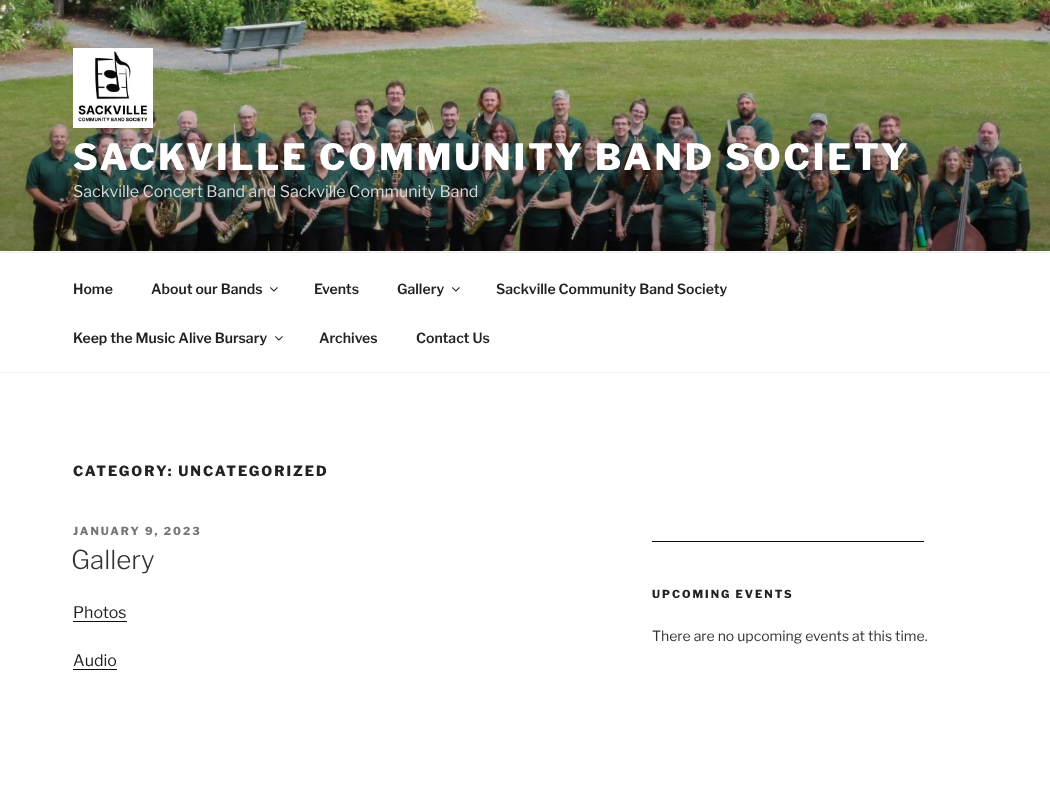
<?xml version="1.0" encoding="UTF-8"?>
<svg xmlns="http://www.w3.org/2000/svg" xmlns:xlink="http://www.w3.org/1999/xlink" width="1050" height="791">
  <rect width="100%" height="100%" fill="#ffffff" />
  <rect y="251" width="1050" height="1" fill="#fafafa" />
  <image x="0" y="0" width="1050" height="251" xlink:href="image1.png" />
  <image x="73" y="48" width="80" height="80" xlink:href="image2.png" />
  <rect y="252" width="1050" height="1" fill="#eeeeee" />
  <rect y="372" width="1050" height="1" fill="#eeeeee" />
  <image x="270" y="287" width="8" height="5" xlink:href="image3.png" />
  <image x="452" y="287" width="8" height="5" xlink:href="image3.png" />
  <image x="275" y="336" width="8" height="5" xlink:href="image3.png" />
  <rect x="73" y="621" width="54" height="1" fill="#0f0f0f" />
  <rect x="73" y="669" width="44" height="1" fill="#0f0f0f" />
  <rect x="652" y="541" width="272" height="1" fill="#0f0f0f" />
  <text x="73" y="170" style="font-family: Libre Franklin; font-size: 36px; font-weight: 800; letter-spacing: 2.9px; fill: #ffffff">SACKVILLE COMMUNITY BAND SOCIETY</text>
  <text x="73" y="197" style="font-family: Libre Franklin; font-size: 16px; fill: #d5d8d7">Sackville Concert Band and Sackville Community Band</text>
  <text x="73" y="294" style="font-family: Libre Franklin; font-size: 14px; font-weight: 600; fill: #222222">Home</text>
  <text x="151" y="294" style="font-family: Libre Franklin; font-size: 14px; font-weight: 600; fill: #222222">About our Bands</text>
  <text x="314" y="294" style="font-family: Libre Franklin; font-size: 14px; font-weight: 600; fill: #222222">Events</text>
  <text x="397" y="294" style="font-family: Libre Franklin; font-size: 14px; font-weight: 600; fill: #222222">Gallery</text>
  <text x="496" y="294" style="font-family: Libre Franklin; font-size: 14px; font-weight: 600; fill: #222222">Sackville Community Band Society</text>
  <text x="73" y="343" style="font-family: Libre Franklin; font-size: 14px; font-weight: 600; fill: #222222">Keep the Music Alive Bursary</text>
  <text x="319" y="343" style="font-family: Libre Franklin; font-size: 14px; font-weight: 600; fill: #222222">Archives</text>
  <text x="416" y="343" style="font-family: Libre Franklin; font-size: 14px; font-weight: 600; fill: #222222">Contact Us</text>
  <text x="73" y="476" style="font-family: Libre Franklin; font-size: 14px; font-weight: 800; letter-spacing: 2px; fill: #222222">CATEGORY: UNCATEGORIZED</text>
  <text x="73" y="535" style="font-family: Libre Franklin; font-size: 11px; font-weight: 800; letter-spacing: 2px; fill: #767676">JANUARY 9, 2023</text>
  <text x="71" y="569" style="font-family: Libre Franklin; font-size: 26px; font-weight: 300; fill: #333333">Gallery</text>
  <text x="73" y="618" style="font-family: Libre Franklin; font-size: 16px; fill: #222222">Photos</text>
  <text x="73" y="666" style="font-family: Libre Franklin; font-size: 16px; fill: #222222">Audio</text>
  <text x="652" y="598" style="font-family: Libre Franklin; font-size: 11px; font-weight: 800; letter-spacing: 2px; fill: #222222">UPCOMING EVENTS</text>
  <text x="652" y="641" style="font-family: Libre Franklin; font-size: 14px; fill: #333333">There are no upcoming events at this time.</text>
</svg>
